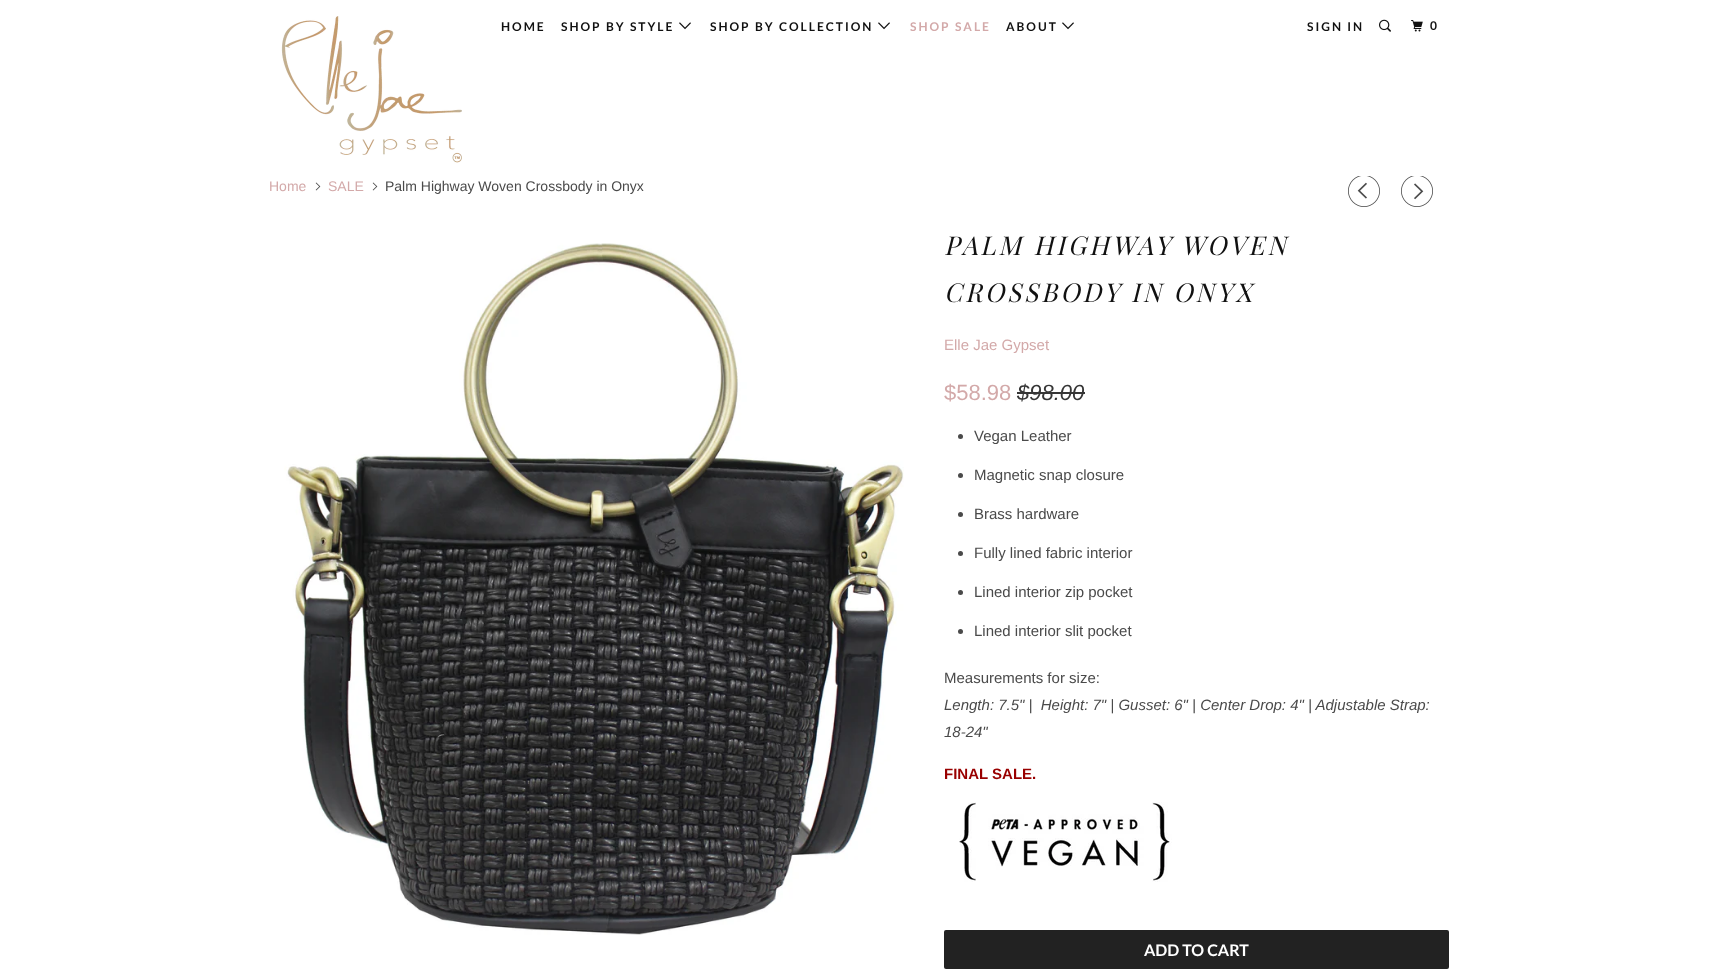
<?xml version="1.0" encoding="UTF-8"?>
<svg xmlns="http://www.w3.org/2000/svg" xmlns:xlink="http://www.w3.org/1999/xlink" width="1718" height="980">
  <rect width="100%" height="100%" fill="#ffffff" />
  <image x="281" y="16" width="181" height="147" xlink:href="image1.png" />
  <image x="679" y="22" width="12" height="8" xlink:href="image2.png" />
  <image x="878" y="22" width="12" height="8" xlink:href="image2.png" />
  <image x="1062" y="22" width="12" height="8" xlink:href="image2.png" />
  <image x="1379" y="19" width="12" height="13" xlink:href="image3.png" />
  <image x="1411" y="20" width="12" height="12" xlink:href="image4.png" />
  <image x="315" y="182" width="6" height="9" xlink:href="image5.png" />
  <image x="372" y="182" width="6" height="9" xlink:href="image5.png" />
  <image x="1348" y="176" width="32" height="31" xlink:href="image6.png" />
  <image x="1401" y="176" width="32" height="31" xlink:href="image7.png" />
  <image x="284" y="243" width="620" height="692" xlink:href="image8.png" />
  <rect x="1017" y="392" width="68" height="2" fill="#363636" />
  <circle cx="960.5" cy="436.5" r="2.5" fill="#4a4a4a" />
  <circle cx="960.5" cy="475.5" r="2.5" fill="#4a4a4a" />
  <circle cx="960.5" cy="514.5" r="2.5" fill="#4a4a4a" />
  <circle cx="960.5" cy="553.5" r="2.5" fill="#4a4a4a" />
  <circle cx="960.5" cy="592.5" r="2.5" fill="#4a4a4a" />
  <circle cx="960.5" cy="631.5" r="2.5" fill="#4a4a4a" />
  <image x="959" y="802" width="213" height="80" xlink:href="image9.png" />
  <rect x="944" y="930" width="505" height="39" rx="2" fill="#222222" />
  <text x="501" y="31" style="font-family: Lato; font-size: 12px; font-weight: bold; letter-spacing: 2px; fill: #111111">HOME</text>
  <text x="561" y="31" style="font-family: Lato; font-size: 12px; font-weight: bold; letter-spacing: 2px; fill: #111111">SHOP BY STYLE</text>
  <text x="710" y="31" style="font-family: Lato; font-size: 12px; font-weight: bold; letter-spacing: 2px; fill: #111111">SHOP BY COLLECTION</text>
  <text x="910" y="31" style="font-family: Lato; font-size: 12px; font-weight: bold; letter-spacing: 2px; fill: #d3a9a9">SHOP SALE</text>
  <text x="1006" y="31" style="font-family: Lato; font-size: 12px; font-weight: bold; letter-spacing: 2px; fill: #111111">ABOUT</text>
  <text x="1307" y="31" style="font-family: Lato; font-size: 12px; font-weight: bold; letter-spacing: 2px; fill: #111111">SIGN IN</text>
  <text x="1430" y="30" style="font-family: Lato; font-size: 12px; font-weight: bold; letter-spacing: 2px; fill: #111111">0</text>
  <text x="269" y="191" style="font-family: Liberation Sans; font-size: 14px; fill: #d3a9a9">Home</text>
  <text x="328" y="191" style="font-family: Liberation Sans; font-size: 14px; fill: #d3a9a9">SALE</text>
  <text x="385" y="191" style="font-family: Liberation Sans; font-size: 14px; fill: #4a4a4a">Palm Highway Woven Crossbody in Onyx</text>
  <text x="944" y="255" style="font-family: Playfair Display; font-size: 26px; font-style: italic; letter-spacing: 3px; fill: #111111">PALM HIGHWAY WOVEN</text>
  <text x="944" y="302" style="font-family: Playfair Display; font-size: 26px; font-style: italic; letter-spacing: 3px; fill: #111111">CROSSBODY IN ONYX</text>
  <text x="944" y="350" style="font-family: Liberation Sans; font-size: 15px; fill: #d3a9a9">Elle Jae Gypset</text>
  <text x="944" y="400" style="font-family: Liberation Sans; font-size: 22px; fill: #d3a9a9">$58.98</text>
  <text x="1017" y="400" style="font-family: Liberation Sans; font-size: 22px; font-style: italic; fill: #363636">$98.00</text>
  <text x="974" y="441" style="font-family: Liberation Sans; font-size: 15px; fill: #4a4a4a">Vegan Leather</text>
  <text x="974" y="480" style="font-family: Liberation Sans; font-size: 15px; fill: #4a4a4a">Magnetic snap closure</text>
  <text x="974" y="519" style="font-family: Liberation Sans; font-size: 15px; fill: #4a4a4a">Brass hardware</text>
  <text x="974" y="558" style="font-family: Liberation Sans; font-size: 15px; fill: #4a4a4a">Fully lined fabric interior</text>
  <text x="974" y="597" style="font-family: Liberation Sans; font-size: 15px; fill: #4a4a4a">Lined interior zip pocket</text>
  <text x="974" y="636" style="font-family: Liberation Sans; font-size: 15px; fill: #4a4a4a">Lined interior slit pocket</text>
  <text x="944" y="683" style="font-family: Liberation Sans; font-size: 15px; fill: #4a4a4a">Measurements for size:</text>
  <text x="944" y="710" style="font-family: Liberation Sans; font-size: 15px; font-style: italic; fill: #4a4a4a" xml:space="preserve">Length: 7.5" |  Height: 7" | Gusset: 6" | Center Drop: 4" | Adjustable Strap:</text>
  <text x="944" y="737" style="font-family: Liberation Sans; font-size: 15px; font-style: italic; fill: #4a4a4a">18-24"</text>
  <text x="944" y="779" style="font-family: Liberation Sans; font-size: 15px; font-weight: bold; fill: #990000">FINAL SALE.</text>
  <text x="1144" y="956" style="font-family: Lato; font-size: 16px; font-weight: bold; fill: #ffffff">ADD TO CART</text>
</svg>
